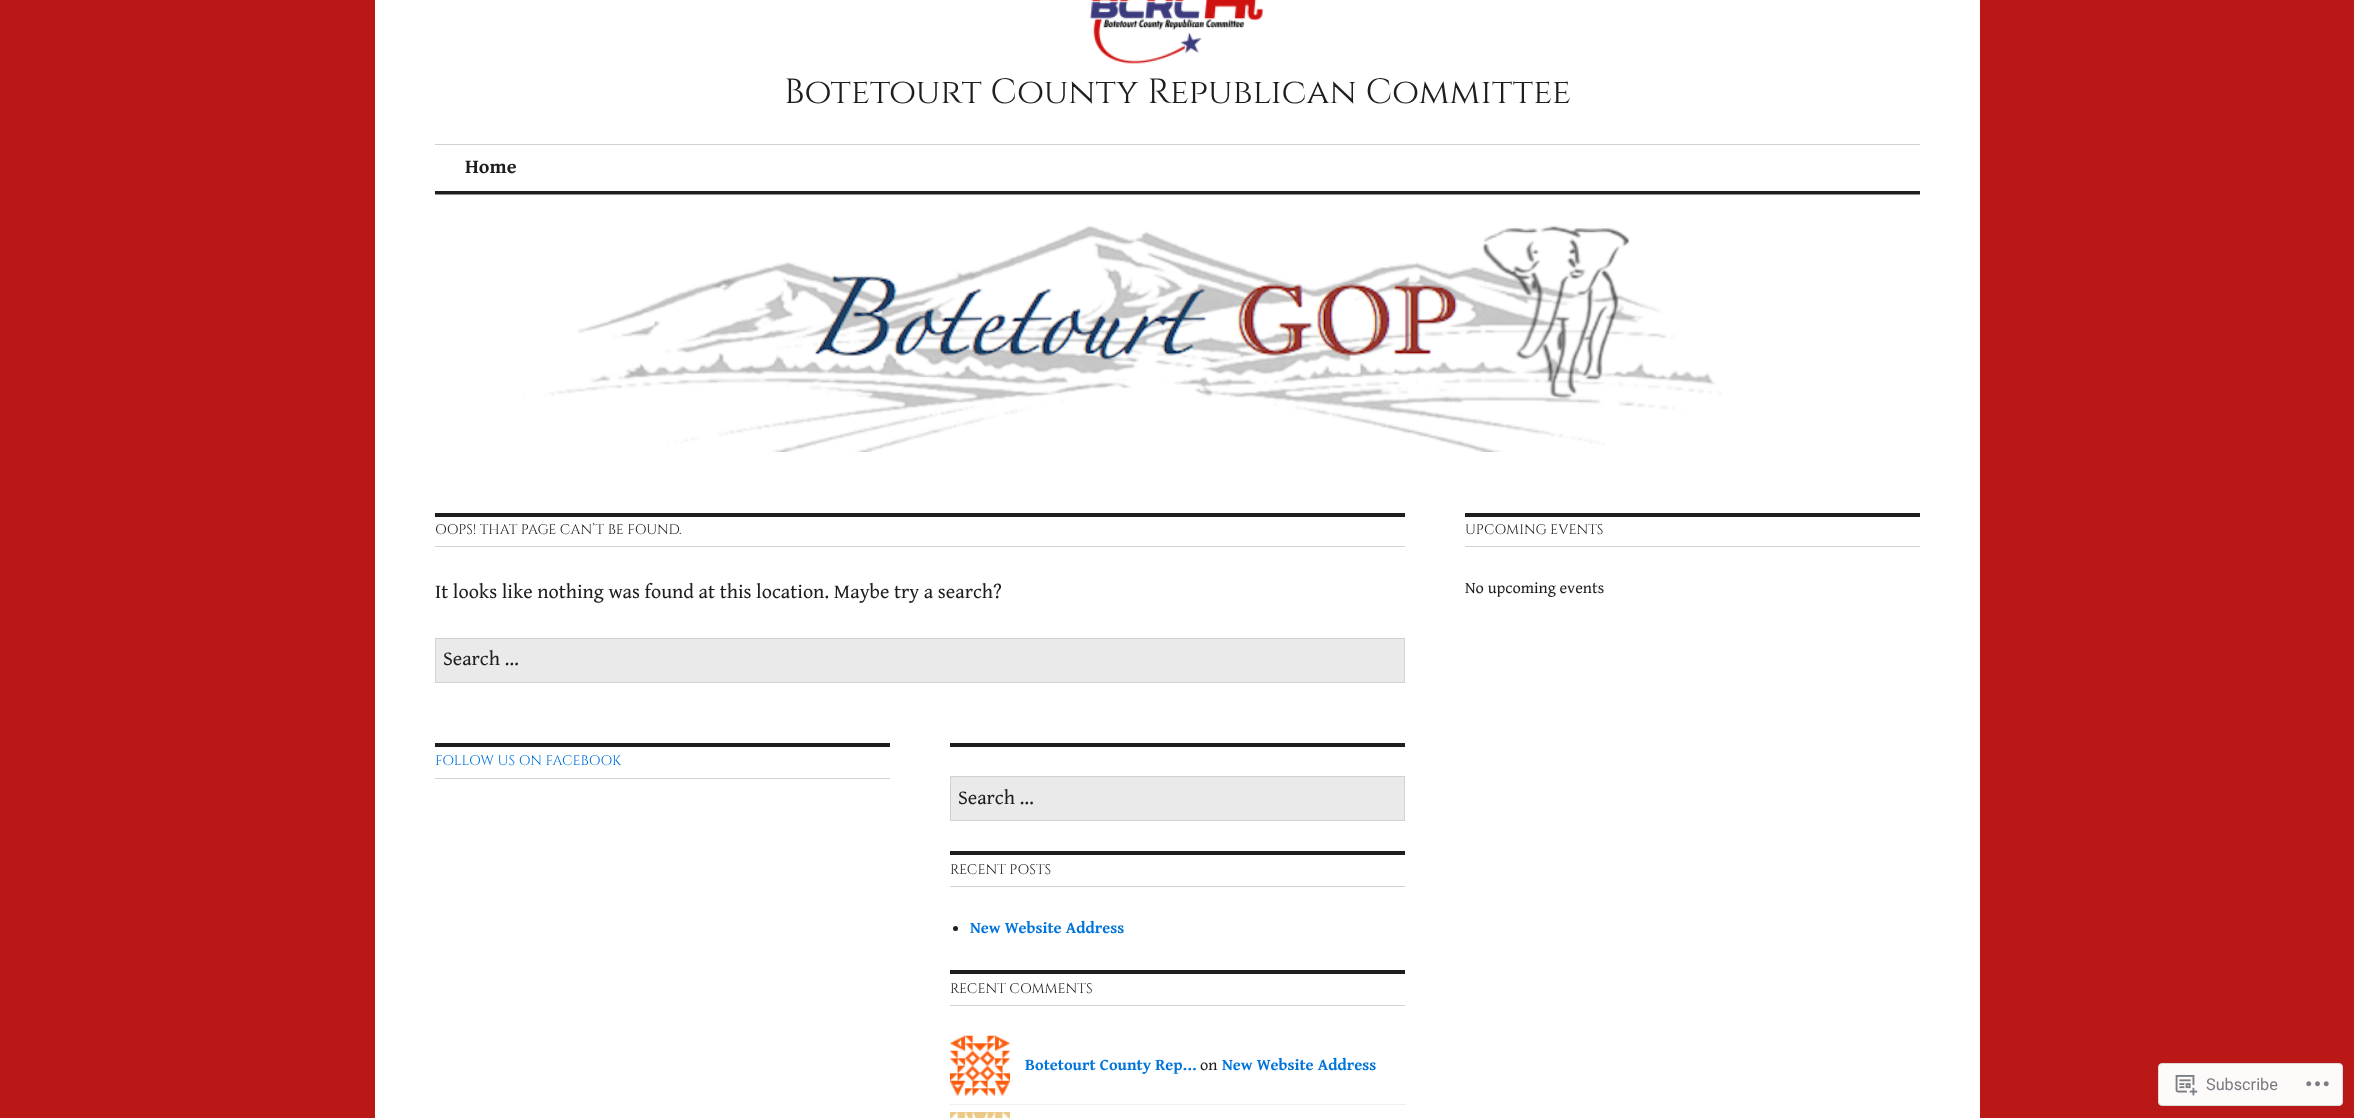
<?xml version="1.0" encoding="UTF-8"?>
<svg xmlns="http://www.w3.org/2000/svg" xmlns:xlink="http://www.w3.org/1999/xlink" width="2354" height="1118">
  <rect width="100%" height="100%" fill="#ba1717" />
  <rect x="375" width="1605" height="1118" fill="#ffffff" />
  <image x="1089" y="0" width="175" height="64" xlink:href="image1.png" />
  <rect x="435" y="144" width="1485" height="1" fill="#d1d1d1" />
  <rect x="435" y="191" width="1485" height="4" fill="#1e1e1e" />
  <image x="435" y="194" width="1485" height="258" xlink:href="image2.png" />
  <rect x="435" y="513" width="970" height="4" fill="#1e1e1e" />
  <rect x="435" y="546" width="970" height="1" fill="#d1d1d1" />
  <rect x="435.5" y="638.5" width="969" height="44" fill="#eaeaea" stroke="#d1d1d1" />
  <rect x="1465" y="513" width="455" height="4" fill="#1e1e1e" />
  <rect x="1465" y="546" width="455" height="1" fill="#d1d1d1" />
  <rect x="435" y="743" width="455" height="4" fill="#1e1e1e" />
  <rect x="435" y="778" width="455" height="1" fill="#d1d1d1" />
  <rect x="950" y="743" width="455" height="4" fill="#1e1e1e" />
  <rect x="950.5" y="776.5" width="454" height="44" fill="#eaeaea" stroke="#d1d1d1" />
  <rect x="950" y="851" width="455" height="4" fill="#1e1e1e" />
  <rect x="950" y="886" width="455" height="1" fill="#d1d1d1" />
  <circle cx="955.5" cy="928.5" r="2.5" fill="#1e1e1e" />
  <rect x="950" y="970" width="455" height="4" fill="#1e1e1e" />
  <rect x="950" y="1005" width="455" height="1" fill="#d1d1d1" />
  <rect x="950" y="1104" width="456" height="1" fill="#efefef" />
  <image x="950" y="1035" width="60" height="61" xlink:href="image3.png" />
  <image x="950" y="1112" width="60" height="6" xlink:href="image4.png" />
  <rect x="2158.5" y="1063.5" width="184" height="42" rx="3.5" fill="#fefafa" stroke="#dbd8da" />
  <image x="2175" y="1075" width="23" height="21" xlink:href="image5.png" />
  <image x="2306" y="1081" width="23" height="6" xlink:href="image6.png" />
  <text x="784" y="103" style="font-family: Cinzel; font-size: 35px; fill: #1e1e1e">Botetourt County Republican Committee</text>
  <text x="465" y="173" style="font-family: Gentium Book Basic; font-size: 20px; font-weight: bold; fill: #1e1e1e">Home</text>
  <text x="435" y="534" style="font-family: Cinzel; font-size: 14px; fill: #1e1e1e">OOPS! THAT PAGE CAN’T BE FOUND.</text>
  <text x="435" y="598" style="font-family: Gentium Book Basic; font-size: 20px; fill: #1e1e1e">It looks like nothing was found at this location. Maybe try a search?</text>
  <text x="443" y="665" style="font-family: Gentium Book Basic; font-size: 20px; fill: #1e1e1e">Search …</text>
  <text x="1465" y="534" style="font-family: Cinzel; font-size: 14px; fill: #1e1e1e">UPCOMING EVENTS</text>
  <text x="1465" y="593" style="font-family: Gentium Book Basic; font-size: 16.25px; fill: #1e1e1e">No upcoming events</text>
  <text x="435" y="765" style="font-family: Cinzel; font-size: 14px; fill: #0074d9">FOLLOW US ON FACEBOOK</text>
  <text x="958" y="804" style="font-family: Gentium Book Basic; font-size: 20px; fill: #1e1e1e">Search …</text>
  <text x="950" y="874" style="font-family: Cinzel; font-size: 14px; fill: #1e1e1e">RECENT POSTS</text>
  <text x="970" y="933" style="font-family: Gentium Book Basic; font-size: 16.25px; font-weight: bold; fill: #0074d9">New Website Address</text>
  <text x="950" y="993" style="font-family: Cinzel; font-size: 14px; fill: #1e1e1e">RECENT COMMENTS</text>
  <text x="1025" y="1070" style="font-family: Gentium Book Basic; font-size: 16.25px; font-weight: bold; fill: #0074d9">Botetourt County Rep…</text>
  <text x="1200" y="1070" style="font-family: Gentium Book Basic; font-size: 16.25px; fill: #1e1e1e">on</text>
  <text x="1222" y="1070" style="font-family: Gentium Book Basic; font-size: 16.25px; font-weight: bold; fill: #0074d9">New Website Address</text>
  <text x="2206" y="1090" style="font-family: Roboto; font-size: 16.25px; fill: #797a80">Subscribe</text>
</svg>
